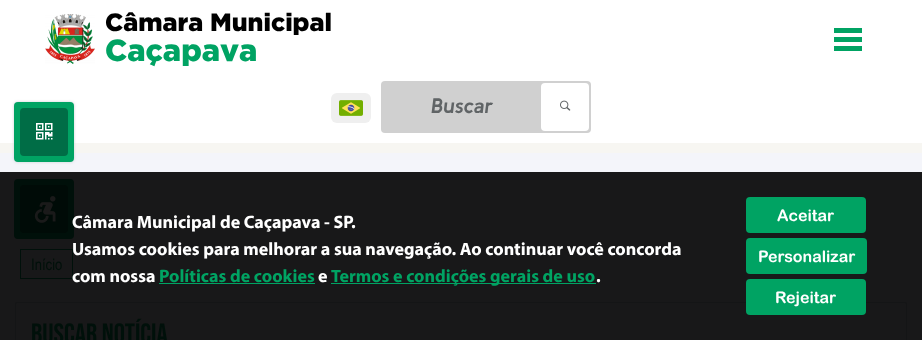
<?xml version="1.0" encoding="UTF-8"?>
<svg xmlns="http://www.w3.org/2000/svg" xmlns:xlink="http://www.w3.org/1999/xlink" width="922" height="340">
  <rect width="100%" height="100%" fill="#f7f6f2" />
  <rect width="922" height="143" fill="#ffffff" />
  <image x="45" y="14" width="50" height="50" xlink:href="image1.png" />
  <rect x="834" y="28" width="28" height="5" fill="#00a363" />
  <rect x="834" y="37" width="28" height="5" fill="#00a363" />
  <rect x="834" y="46" width="28" height="5" fill="#00a363" />
  <rect x="331" y="93" width="40" height="30" rx="6" fill="#efefef" />
  <image x="339" y="100" width="24" height="16" xlink:href="image2.png" />
  <rect x="381" y="81" width="210" height="52" rx="4" fill="#d0d0d0" />
  <rect x="541" y="83" width="48" height="48" rx="4" fill="#ffffff" />
  <image x="560" y="100" width="11" height="11" xlink:href="image3.png" />
  <rect y="172" width="922" height="168" fill="#181819" />
  <rect x="159" y="283" width="156" height="1" fill="#00a363" />
  <rect x="331" y="283" width="265" height="1" fill="#00a363" />
  <rect x="746" y="197" width="120" height="36" rx="4" fill="#00a363" />
  <rect x="746" y="238" width="121" height="36" rx="4" fill="#00a363" />
  <rect x="15.5" y="302.5" width="891" height="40" rx="1.5" fill="none" stroke="#141516" />
  <rect x="746" y="279" width="120" height="36" rx="4" fill="#00a363" />
  <rect y="153" width="922" height="19" fill="#f4f5fa" />
  <rect x="20.5" y="249.5" width="52" height="29" fill="none" stroke="#00100a" />
  <rect x="14" y="102" width="60" height="60" rx="4" fill="#cbd0d6" filter="blur(1.5px)" />
  <rect x="14" y="102" width="60" height="60" rx="4" fill="#00a363" />
  <rect x="20" y="108" width="48" height="48" rx="4" fill="#006d46" />
  <image x="36" y="123" width="17" height="17" xlink:href="image4.png" />
  <rect x="14" y="179" width="60" height="60" rx="4" fill="#00100a" />
  <rect x="20" y="185" width="48" height="48" rx="4" fill="#000b07" />
  <image x="34" y="196" width="22" height="27" xlink:href="image5.png" />
  <text x="105" y="31" style="font-family: Gotham; font-size: 25px; font-weight: 900; fill: #000000">Câmara Municipal</text>
  <text x="105" y="61" style="font-family: Gotham; font-size: 30.5px; font-weight: 900; fill: #00a363">Caçapava</text>
  <text x="431" y="113" style="font-family: Kulim Park; font-size: 21px; font-weight: bold; font-style: italic; fill: #606466">Buscar</text>
  <text x="72" y="228" style="font-family: Myriad; font-size: 18px; font-weight: bold; fill: #ffffff">Câmara Municipal de Caçapava - SP.</text>
  <text x="72" y="255" style="font-family: Myriad; font-size: 18px; font-weight: bold; fill: #ffffff">Usamos cookies para melhorar a sua navegação. Ao continuar você concorda</text>
  <text x="72" y="282" style="font-family: Myriad; font-size: 18px; font-weight: bold; fill: #ffffff">com nossa</text>
  <text x="159" y="282" style="font-family: Myriad; font-size: 18px; font-weight: bold; fill: #00a363">Políticas de cookies</text>
  <text x="318" y="282" style="font-family: Myriad; font-size: 18px; font-weight: bold; fill: #ffffff">e</text>
  <text x="331" y="282" style="font-family: Myriad; font-size: 18px; font-weight: bold; fill: #00a363">Termos e condições gerais de uso</text>
  <text x="596" y="282" style="font-family: Myriad; font-size: 18px; font-weight: bold; fill: #ffffff">.</text>
  <text x="777" y="221" style="font-family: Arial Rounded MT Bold; font-size: 16px; font-weight: bold; fill: #ffffff">Aceitar</text>
  <text x="758" y="262" style="font-family: Arial Rounded MT Bold; font-size: 16px; font-weight: bold; fill: #ffffff">Personalizar</text>
  <text x="775" y="303" style="font-family: Arial Rounded MT Bold; font-size: 16px; font-weight: bold; fill: #ffffff">Rejeitar</text>
  <text x="31" y="270" style="font-family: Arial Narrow; font-size: 16px; fill: #00100a">Início</text>
  <text x="31" y="343" style="font-family: Bebas Neue; font-size: 28px; fill: #00100a">Buscar Notícia</text>
</svg>
